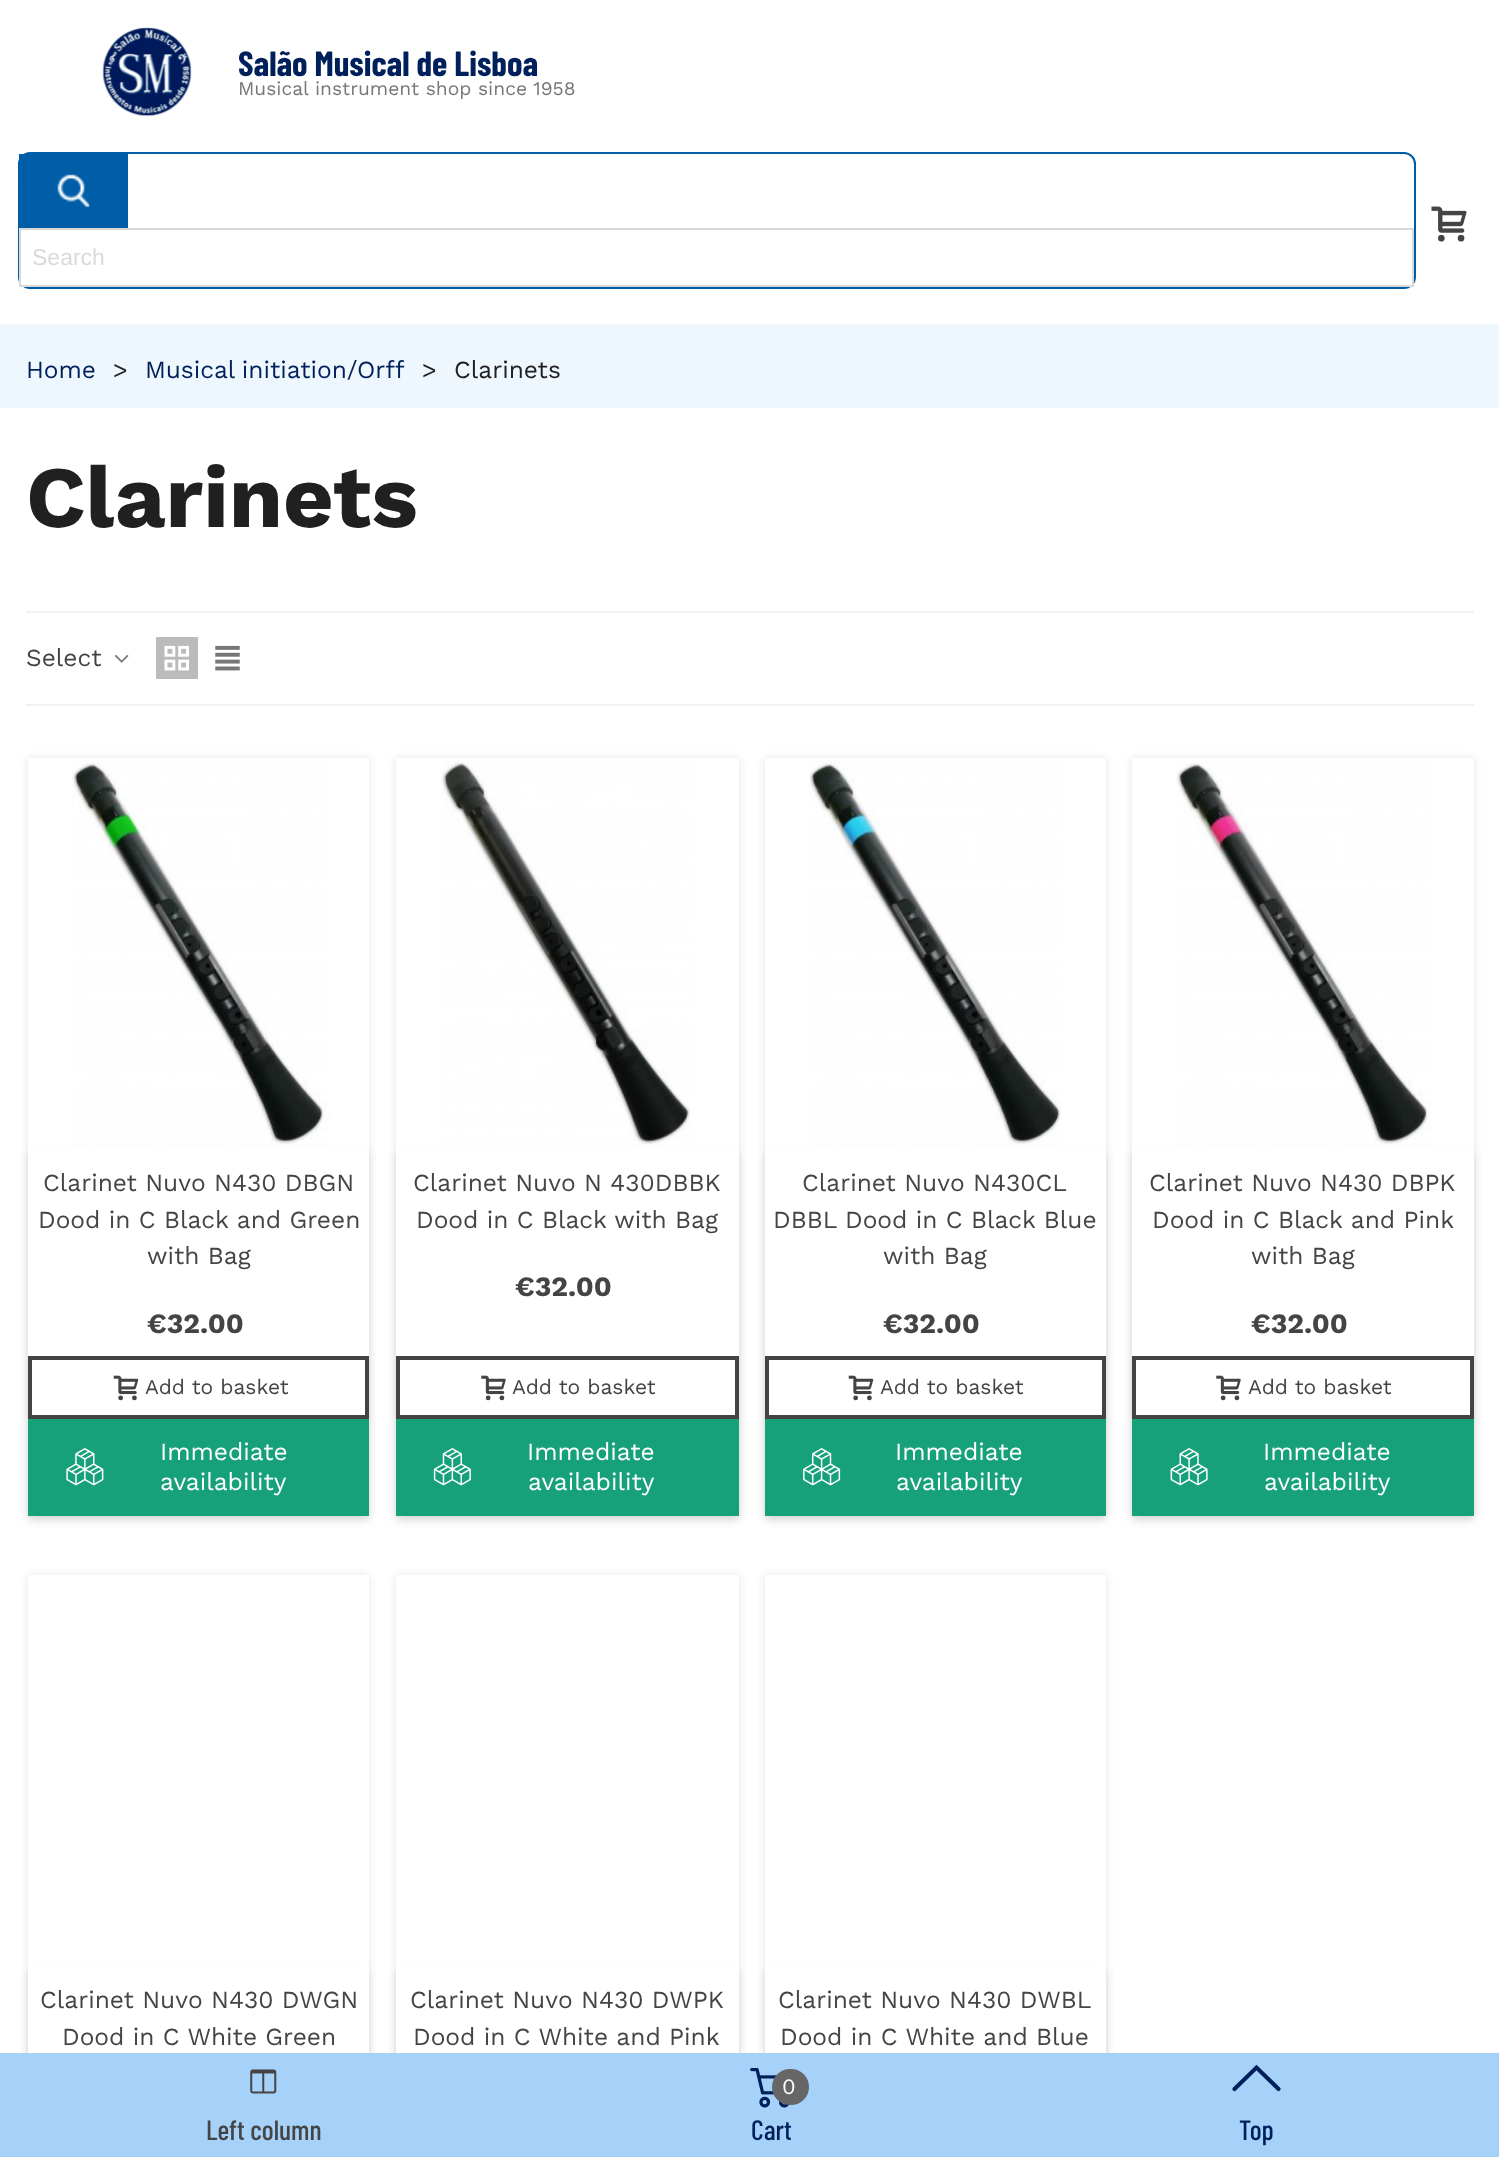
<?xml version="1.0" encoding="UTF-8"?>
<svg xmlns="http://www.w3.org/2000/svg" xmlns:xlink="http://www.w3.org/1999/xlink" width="1499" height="2157">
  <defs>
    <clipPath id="clip1"><path d="M 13 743 h 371 v 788 h -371 z m 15 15 h 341 v 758 h -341 z" clip-rule="evenodd" /></clipPath>
    <clipPath id="clip2"><path d="M 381 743 h 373 v 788 h -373 z m 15 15 h 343 v 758 h -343 z" clip-rule="evenodd" /></clipPath>
    <clipPath id="clip3"><path d="M 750 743 h 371 v 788 h -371 z m 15 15 h 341 v 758 h -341 z" clip-rule="evenodd" /></clipPath>
    <clipPath id="clip4"><path d="M 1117 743 h 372 v 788 h -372 z m 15 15 h 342 v 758 h -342 z" clip-rule="evenodd" /></clipPath>
    <clipPath id="clip5"><path d="M 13 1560 h 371 v 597 h -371 z m 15 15 h 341 v 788 h -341 z" clip-rule="evenodd" /></clipPath>
    <clipPath id="clip6"><path d="M 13 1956 h 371 v 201 h -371 z m 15 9 h 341 v 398 h -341 z" clip-rule="evenodd" /></clipPath>
    <clipPath id="clip7"><path d="M 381 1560 h 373 v 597 h -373 z m 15 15 h 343 v 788 h -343 z" clip-rule="evenodd" /></clipPath>
    <clipPath id="clip8"><path d="M 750 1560 h 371 v 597 h -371 z m 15 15 h 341 v 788 h -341 z" clip-rule="evenodd" /></clipPath>
    <clipPath id="clip9"><path d="M 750 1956 h 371 v 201 h -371 z m 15 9 h 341 v 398 h -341 z" clip-rule="evenodd" /></clipPath>
  </defs>
  <rect width="100%" height="100%" fill="#ffffff" />
  <image x="102" y="27" width="90" height="90" xlink:href="image1.png" />
  <image x="1431" y="206" width="36" height="36" xlink:href="image2.png" />
  <rect x="19" y="153" width="1396" height="135" rx="11" fill="none" stroke="#005da8" stroke-width="2" />
  <rect x="19" y="154" width="109" height="74" fill="#005da8" />
  <image x="57" y="174" width="33" height="34" xlink:href="image3.png" />
  <rect x="21" y="281" width="1391" height="4" fill="#ffffff" />
  <rect x="20" y="229" width="1393" height="57" fill="none" stroke="#d9d9d9" stroke-width="2" />
  <rect y="324" width="1499" height="84" fill="#eef6fe" />
  <rect x="26" y="611" width="1448" height="2" fill="#f2f2f2" />
  <rect x="26" y="704" width="1448" height="2" fill="#f2f2f2" />
  <image x="114" y="654" width="15" height="9" xlink:href="image4.png" />
  <rect x="156" y="637" width="42" height="42" fill="#bbbbbb" />
  <image x="164" y="645" width="25" height="26" xlink:href="image5.png" />
  <image x="215" y="645" width="25" height="26" xlink:href="image6.png" />
  <g clip-path="url(#clip1)">
    <rect x="28" y="758" width="341" height="758" fill="#000000" fill-opacity="0.1" filter="blur(4.5px)" />
  </g>
  <rect x="28" y="1153" width="341" height="368" fill="#000000" fill-opacity="0.1" filter="blur(4.5px)" />
  <image x="72" y="760" width="257" height="385" xlink:href="image7.png" />
  <rect x="28" y="1148" width="341" height="267" fill="#ffffff" />
  <rect x="30" y="1358" width="337" height="59" fill="none" stroke="#444444" stroke-width="4" />
  <image x="113" y="1375" width="26" height="26" xlink:href="image8.png" />
  <rect x="28" y="1419" width="341" height="97" fill="#17a17a" />
  <image x="66" y="1448" width="38" height="38" xlink:href="image9.png" />
  <g clip-path="url(#clip2)">
    <rect x="396" y="758" width="343" height="758" fill="#000000" fill-opacity="0.1" filter="blur(4.5px)" />
  </g>
  <rect x="396" y="1153" width="343" height="368" fill="#000000" fill-opacity="0.1" filter="blur(4.5px)" />
  <image x="441" y="761" width="250" height="384" xlink:href="image10.png" />
  <rect x="396" y="1148" width="343" height="267" fill="#ffffff" />
  <rect x="398" y="1358" width="339" height="59" fill="none" stroke="#444444" stroke-width="4" />
  <image x="481" y="1375" width="25" height="26" xlink:href="image11.png" />
  <rect x="396" y="1419" width="343" height="97" fill="#17a17a" />
  <image x="433" y="1448" width="38" height="38" xlink:href="image12.png" />
  <g clip-path="url(#clip3)">
    <rect x="765" y="758" width="341" height="758" fill="#000000" fill-opacity="0.1" filter="blur(4.5px)" />
  </g>
  <rect x="765" y="1153" width="341" height="368" fill="#000000" fill-opacity="0.1" filter="blur(4.5px)" />
  <image x="809" y="760" width="253" height="385" xlink:href="image13.png" />
  <rect x="765" y="1148" width="341" height="267" fill="#ffffff" />
  <rect x="767" y="1358" width="337" height="59" fill="none" stroke="#444444" stroke-width="4" />
  <image x="848" y="1375" width="26" height="26" xlink:href="image8.png" />
  <rect x="765" y="1419" width="341" height="97" fill="#17a17a" />
  <image x="803" y="1448" width="38" height="38" xlink:href="image14.png" />
  <g clip-path="url(#clip4)">
    <rect x="1132" y="758" width="342" height="758" fill="#000000" fill-opacity="0.1" filter="blur(4.5px)" />
  </g>
  <rect x="1132" y="1153" width="342" height="368" fill="#000000" fill-opacity="0.1" filter="blur(4.5px)" />
  <image x="1176" y="762" width="256" height="383" xlink:href="image15.png" />
  <rect x="1132" y="1148" width="342" height="267" fill="#ffffff" />
  <rect x="1134" y="1358" width="338" height="59" fill="none" stroke="#444444" stroke-width="4" />
  <image x="1216" y="1375" width="25" height="26" xlink:href="image11.png" />
  <rect x="1132" y="1419" width="342" height="97" fill="#17a17a" />
  <image x="1170" y="1448" width="38" height="38" xlink:href="image16.png" />
  <g clip-path="url(#clip5)">
    <rect x="28" y="1575" width="341" height="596" fill="#000000" fill-opacity="0.1" filter="blur(4.5px)" />
  </g>
  <g clip-path="url(#clip6)">
    <rect x="28" y="1971" width="341" height="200" fill="#000000" fill-opacity="0.1" filter="blur(4.5px)" />
  </g>
  <g clip-path="url(#clip7)">
    <rect x="396" y="1575" width="343" height="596" fill="#000000" fill-opacity="0.1" filter="blur(4.5px)" />
  </g>
  <rect x="396" y="1971" width="343" height="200" fill="#000000" fill-opacity="0.1" filter="blur(4.5px)" />
  <rect x="396" y="1965" width="343" height="88" fill="#ffffff" />
  <g clip-path="url(#clip8)">
    <rect x="765" y="1575" width="341" height="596" fill="#000000" fill-opacity="0.1" filter="blur(4.5px)" />
  </g>
  <g clip-path="url(#clip9)">
    <rect x="765" y="1971" width="341" height="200" fill="#000000" fill-opacity="0.1" filter="blur(4.5px)" />
  </g>
  <rect y="2053" width="1499" height="104" fill="#a6d2f9" />
  <image x="250" y="2069" width="27" height="25" xlink:href="image17.png" />
  <image x="750" y="2068" width="40" height="40" xlink:href="image18.png" />
  <rect x="772" y="2069" width="37" height="36" rx="18" fill="#666666" />
  <path d="M 1234.5 2089 l 22 -21.5 l 22 21.5" fill="none" stroke="#00205b" stroke-width="4.1" stroke-linecap="round" />
  <text x="238" y="76" style="font-family: Barlow Condensed; font-size: 35px; font-weight: bold; fill: #00205b">Salão Musical de Lisboa</text>
  <text x="238" y="95" style="font-family: Work Sans; font-size: 19.25px; fill: #777777">Musical instrument shop since 1958</text>
  <text x="32" y="265" style="font-family: Liberation Sans; font-size: 23px; fill: #dadada">Search</text>
  <text x="26" y="378" style="font-family: Work Sans; font-size: 24.5px; fill: #00205b">Home</text>
  <text x="113" y="378" style="font-family: Work Sans; font-size: 24.5px; fill: #202020">&gt;</text>
  <text x="145" y="378" word-spacing="-1" style="font-family: Work Sans; font-size: 24.5px; fill: #00205b">Musical initiation/Orff</text>
  <text x="422" y="378" style="font-family: Work Sans; font-size: 24.5px; fill: #202020">&gt;</text>
  <text x="454" y="378" style="font-family: Work Sans; font-size: 24.5px; fill: #202020">Clarinets</text>
  <text x="26" y="527" style="font-family: Work Sans; font-size: 87.5px; font-weight: bold; fill: #202020">Clarinets</text>
  <text x="26" y="666" style="font-family: Work Sans; font-size: 24.5px; fill: #444444">Select</text>
  <text x="43" y="1191" style="font-family: Work Sans; font-size: 24.5px; fill: #444444">Clarinet Nuvo N430 DBGN</text>
  <text x="38" y="1228" style="font-family: Work Sans; font-size: 24.5px; fill: #444444">Dood in C Black and Green</text>
  <text x="147" y="1264" style="font-family: Work Sans; font-size: 24.5px; fill: #444444">with Bag</text>
  <text x="147" y="1333" style="font-family: Work Sans; font-size: 28px; font-weight: bold; fill: #444444">€32.00</text>
  <text x="145" y="1394" style="font-family: Work Sans; font-size: 21px; fill: #444444">Add to basket</text>
  <text x="160" y="1460" style="font-family: Work Sans; font-size: 24.5px; fill: #ffffff">Immediate</text>
  <text x="160" y="1490" style="font-family: Work Sans; font-size: 24.5px; fill: #ffffff">availability</text>
  <text x="413" y="1191" style="font-family: Work Sans; font-size: 24.5px; fill: #444444">Clarinet Nuvo N 430DBBK</text>
  <text x="416" y="1228" style="font-family: Work Sans; font-size: 24.5px; fill: #444444">Dood in C Black with Bag</text>
  <text x="515" y="1296" style="font-family: Work Sans; font-size: 28px; font-weight: bold; fill: #444444">€32.00</text>
  <text x="512" y="1394" style="font-family: Work Sans; font-size: 21px; fill: #444444">Add to basket</text>
  <text x="527" y="1460" style="font-family: Work Sans; font-size: 24.5px; fill: #ffffff">Immediate</text>
  <text x="528" y="1490" style="font-family: Work Sans; font-size: 24.5px; fill: #ffffff">availability</text>
  <text x="802" y="1191" style="font-family: Work Sans; font-size: 24.5px; fill: #444444">Clarinet Nuvo N430CL</text>
  <text x="773" y="1228" style="font-family: Work Sans; font-size: 24.5px; fill: #444444">DBBL Dood in C Black Blue</text>
  <text x="883" y="1264" style="font-family: Work Sans; font-size: 24.5px; fill: #444444">with Bag</text>
  <text x="883" y="1333" style="font-family: Work Sans; font-size: 28px; font-weight: bold; fill: #444444">€32.00</text>
  <text x="880" y="1394" style="font-family: Work Sans; font-size: 21px; fill: #444444">Add to basket</text>
  <text x="895" y="1460" style="font-family: Work Sans; font-size: 24.5px; fill: #ffffff">Immediate</text>
  <text x="896" y="1490" style="font-family: Work Sans; font-size: 24.5px; fill: #ffffff">availability</text>
  <text x="1149" y="1191" style="font-family: Work Sans; font-size: 24.5px; fill: #444444">Clarinet Nuvo N430 DBPK</text>
  <text x="1152" y="1228" style="font-family: Work Sans; font-size: 24.5px; fill: #444444">Dood in C Black and Pink</text>
  <text x="1251" y="1264" style="font-family: Work Sans; font-size: 24.5px; fill: #444444">with Bag</text>
  <text x="1251" y="1333" style="font-family: Work Sans; font-size: 28px; font-weight: bold; fill: #444444">€32.00</text>
  <text x="1248" y="1394" style="font-family: Work Sans; font-size: 21px; fill: #444444">Add to basket</text>
  <text x="1263" y="1460" style="font-family: Work Sans; font-size: 24.5px; fill: #ffffff">Immediate</text>
  <text x="1264" y="1490" style="font-family: Work Sans; font-size: 24.5px; fill: #ffffff">availability</text>
  <text x="40" y="2008" style="font-family: Work Sans; font-size: 24.5px; fill: #444444">Clarinet Nuvo N430 DWGN</text>
  <text x="62" y="2045" style="font-family: Work Sans; font-size: 24.5px; fill: #444444">Dood in C White Green</text>
  <text x="410" y="2008" style="font-family: Work Sans; font-size: 24.5px; fill: #444444">Clarinet Nuvo N430 DWPK</text>
  <text x="413" y="2045" style="font-family: Work Sans; font-size: 24.5px; fill: #444444">Dood in C White and Pink</text>
  <text x="778" y="2008" style="font-family: Work Sans; font-size: 24.5px; fill: #444444">Clarinet Nuvo N430 DWBL</text>
  <text x="780" y="2045" style="font-family: Work Sans; font-size: 24.5px; fill: #444444">Dood in C White and Blue</text>
  <text x="206" y="2140" style="font-family: Barlow Condensed; font-size: 28px; font-weight: 500; fill: #444444">Left column</text>
  <text x="782" y="2094" style="font-family: Work Sans; font-size: 22px; fill: #ffffff">0</text>
  <text x="751" y="2140" style="font-family: Barlow Condensed; font-size: 28px; font-weight: 500; fill: #00205b">Cart</text>
  <text x="1239" y="2140" style="font-family: Barlow Condensed; font-size: 28px; font-weight: 500; fill: #00205b">Top</text>
</svg>
